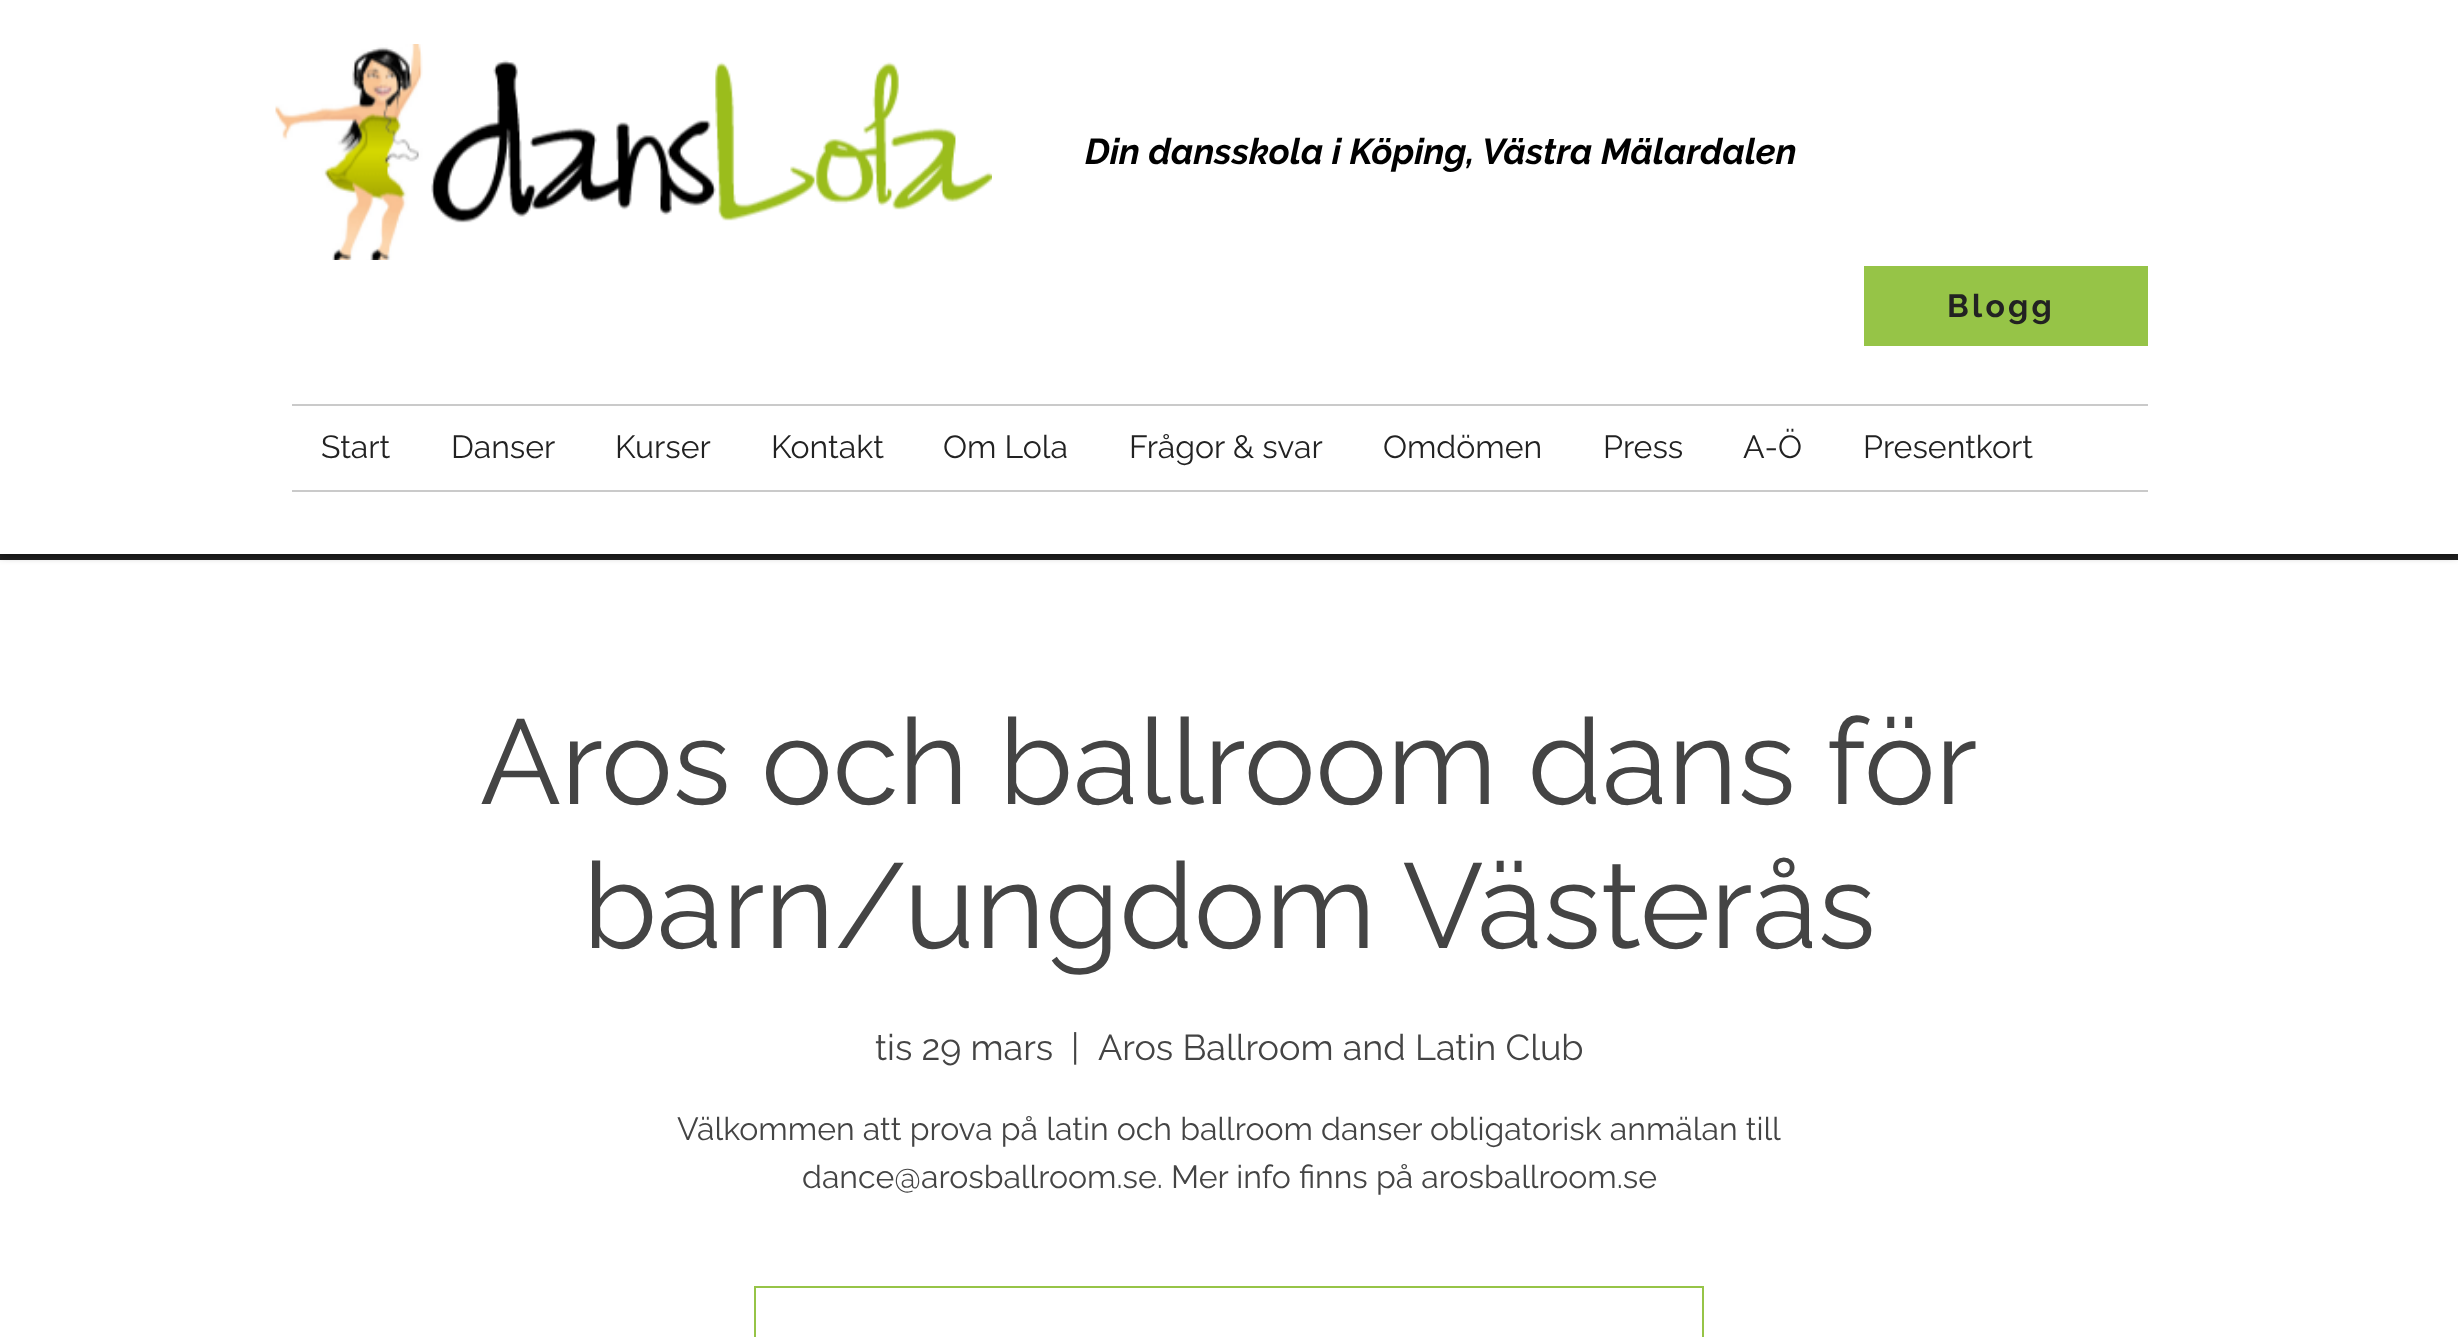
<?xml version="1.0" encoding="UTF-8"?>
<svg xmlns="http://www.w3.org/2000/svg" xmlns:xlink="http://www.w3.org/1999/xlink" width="2458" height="1337">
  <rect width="100%" height="100%" fill="#222222" />
  <rect y="560" width="2458" height="777" fill="#ffffff" />
  <rect width="2458" height="554" fill="#000000" fill-opacity="0.7" filter="blur(5px)" />
  <rect width="2458" height="554" fill="#ffffff" />
  <image x="275" y="44" width="717" height="216" xlink:href="image1.png" />
  <rect x="1864" y="266" width="284" height="80" fill="#96c447" />
  <rect x="292" y="404" width="1856" height="2" fill="#cacaca" />
  <rect x="292" y="490" width="1856" height="2" fill="#cacaca" />
  <rect x="755" y="1287" width="948" height="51" fill="none" stroke="#96c447" stroke-width="2" />
  <text x="1085" y="164" style="font-family: Raleway; font-size: 36px; font-weight: bold; font-style: italic; fill: #000000">Din dansskola i Köping, Västra Mälardalen</text>
  <text x="1947" y="317" style="font-family: Raleway; font-size: 32px; font-weight: bold; letter-spacing: 3.25px; fill: #222222">Blogg</text>
  <text x="321" y="458" style="font-family: Raleway; font-size: 32px; fill: #222222">Start</text>
  <text x="451" y="458" style="font-family: Raleway; font-size: 32px; fill: #222222">Danser</text>
  <text x="615" y="458" style="font-family: Raleway; font-size: 32px; fill: #222222">Kurser</text>
  <text x="771" y="458" style="font-family: Raleway; font-size: 32px; fill: #222222">Kontakt</text>
  <text x="943" y="458" style="font-family: Raleway; font-size: 32px; fill: #222222">Om Lola</text>
  <text x="1129" y="458" style="font-family: Raleway; font-size: 32px; fill: #222222">Frågor &amp; svar</text>
  <text x="1383" y="458" style="font-family: Raleway; font-size: 32px; fill: #222222">Omdömen</text>
  <text x="1603" y="458" style="font-family: Raleway; font-size: 32px; fill: #222222">Press</text>
  <text x="1743" y="458" style="font-family: Raleway; font-size: 32px; fill: #222222">A-Ö</text>
  <text x="1863" y="458" style="font-family: Raleway; font-size: 32px; fill: #222222">Presentkort</text>
  <text x="480" y="804" style="font-family: Raleway; font-size: 120px; fill: #444444">Aros och ballroom dans för</text>
  <text x="583" y="948" style="font-family: Raleway; font-size: 120px; fill: #444444">barn/ungdom Västerås</text>
  <text x="875" y="1060" style="font-family: Raleway; font-size: 36px; fill: #444444">tis 29 mars</text>
  <text x="1071" y="1060" style="font-family: Raleway; font-size: 36px; fill: #444444">|</text>
  <text x="1098" y="1060" style="font-family: Raleway; font-size: 36px; fill: #444444">Aros Ballroom and Latin Club</text>
  <text x="677" y="1140" style="font-family: Raleway; font-size: 32px; fill: #444444">Välkommen att prova på latin och ballroom danser obligatorisk anmälan till</text>
  <text x="802" y="1188" style="font-family: Raleway; font-size: 32px; fill: #444444">dance@arosballroom.se. Mer info finns på arosballroom.se</text>
</svg>
